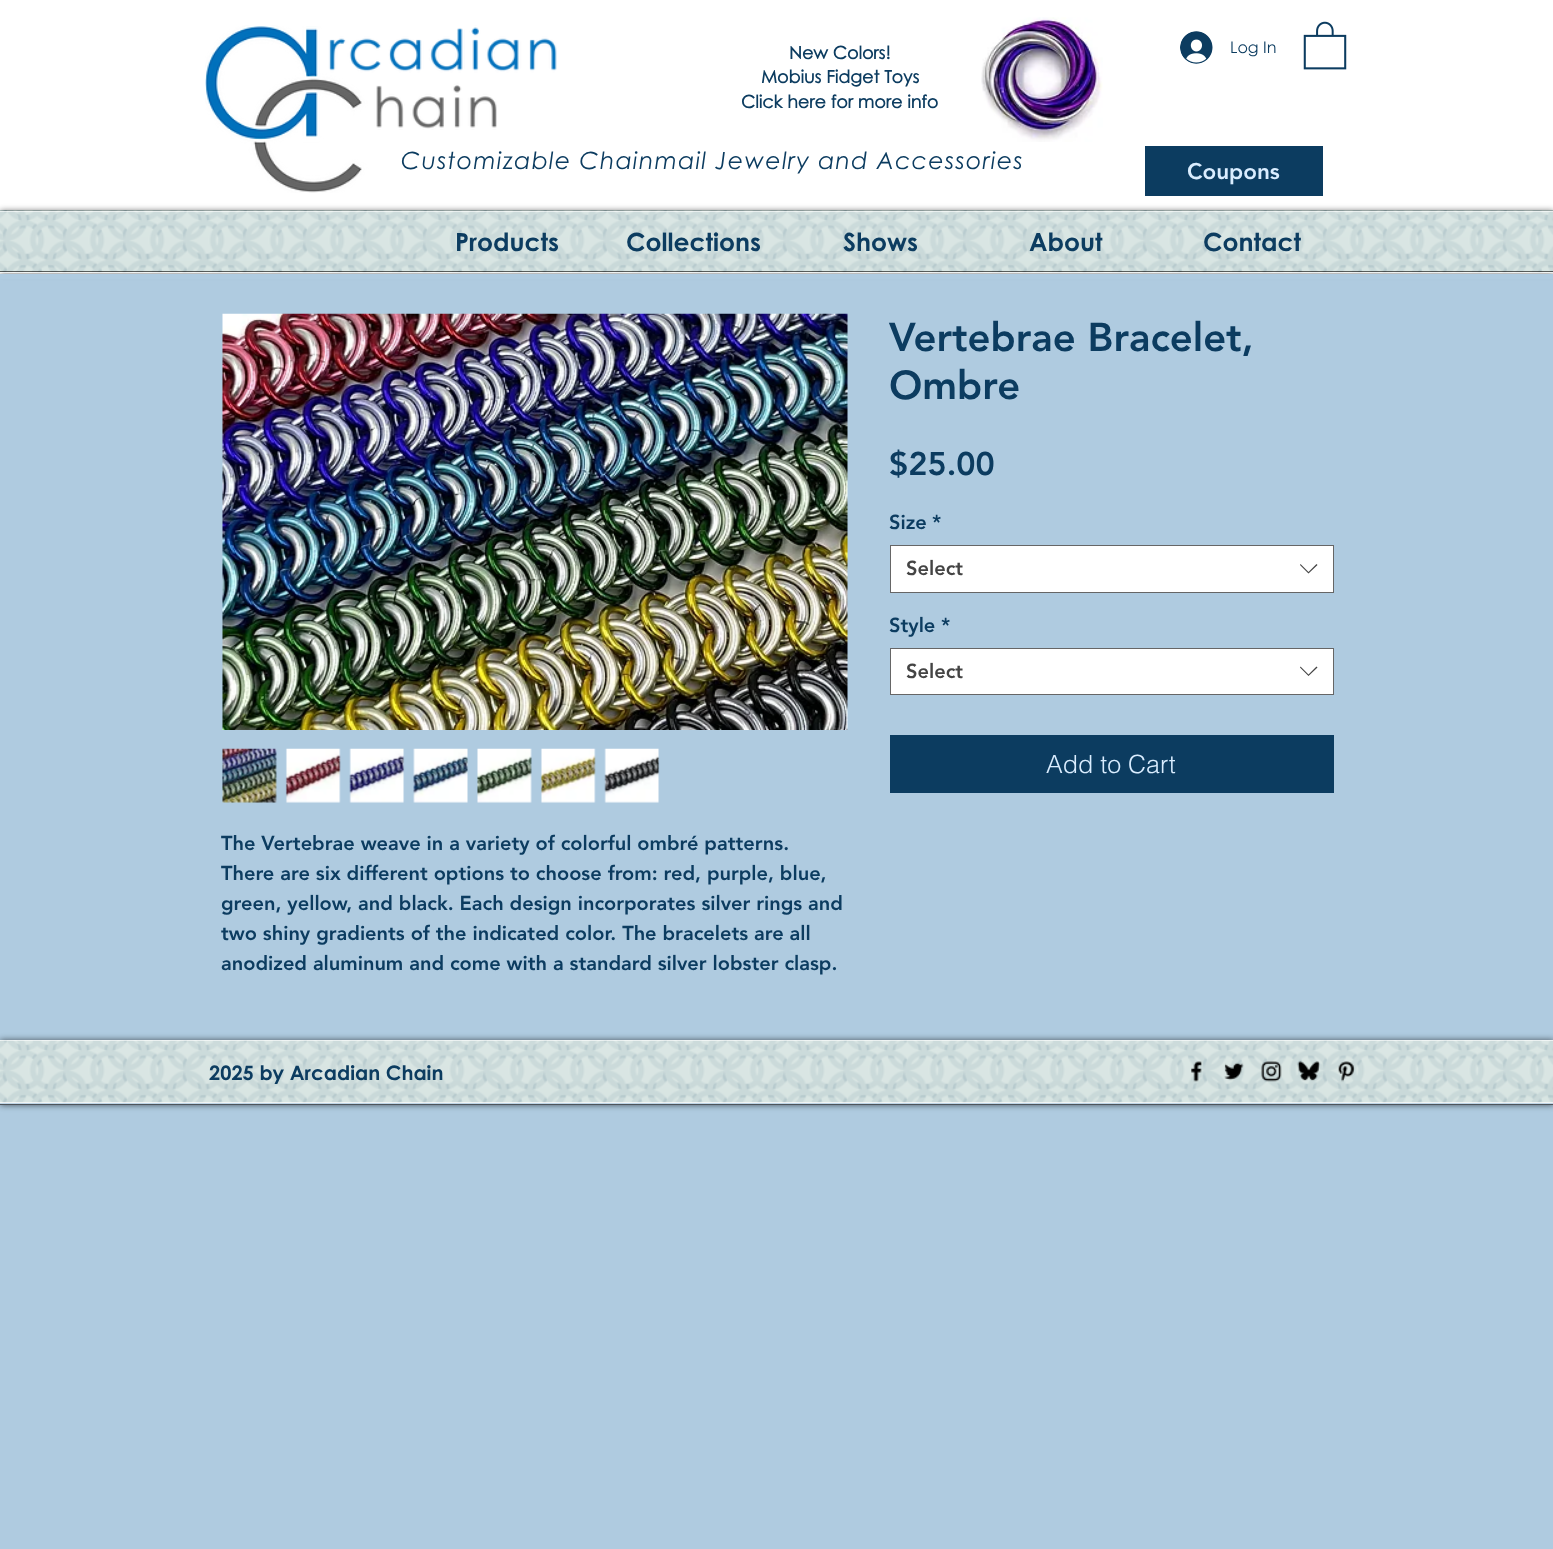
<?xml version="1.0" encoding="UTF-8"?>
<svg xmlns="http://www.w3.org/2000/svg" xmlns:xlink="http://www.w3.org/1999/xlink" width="1553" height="1549">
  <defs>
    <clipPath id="clip1"><path d="M 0 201 h 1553 v 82 h -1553 z m 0 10 h 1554 v 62 h -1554 z" clip-rule="evenodd" /></clipPath>
    <clipPath id="clip2"><path d="M 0 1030 h 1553 v 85 h -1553 z m 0 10 h 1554 v 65 h -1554 z" clip-rule="evenodd" /></clipPath>
    <clipPath id="clip3"><rect x="221" y="829" width="625" height="150" /></clipPath>
  </defs>
  <rect width="100%" height="100%" fill="#afcbe0" />
  <rect width="1553" height="274" fill="#ffffff" />
  <image x="981" y="17" width="122" height="125" xlink:href="image2.png" />
  <image x="1180" y="31" width="33" height="33" xlink:href="image3.png" />
  <image x="1303" y="21" width="44" height="49" xlink:href="image4.png" />
  <rect x="1145" y="146" width="178" height="50" fill="#0c3c60" />
  <rect y="272" width="1553" height="1" fill="#fafafa" />
  <image x="0" y="210" width="1553" height="63" xlink:href="image5.png" />
  <g clip-path="url(#clip1)">
    <rect y="211" width="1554" height="62" fill="#000000" fill-opacity="0.6" filter="blur(3px)" />
  </g>
  <image x="0" y="211" width="1553" height="62" xlink:href="image6.png" />
  <rect y="271" width="1553" height="1" fill="#000000" fill-opacity="0.6" />
  <rect y="211" width="1553" height="1" fill="#ffffff" fill-opacity="0.6" />
  <rect y="274" width="1553" height="5" fill="#afcbe0" />
  <rect x="890.5" y="545.5" width="443" height="47" fill="#ffffff" stroke="#666666" />
  <path d="M 1316.5 564 l 1 1 l -9 8.5 l -8.5 -8.5 l 0.5 -1 l 8 8 z" fill="#444444" fill-rule="evenodd" />
  <rect x="890.5" y="648.5" width="443" height="46" fill="#ffffff" stroke="#666666" />
  <path d="M 1316.5 666.5 l 1 1 l -9 8.5 l -8.5 -8.5 l 0.5 -1 l 8 8 z" fill="#444444" fill-rule="evenodd" />
  <rect x="890" y="735" width="444" height="58" fill="#0c3c60" />
  <image x="222" y="313" width="626" height="417" xlink:href="image7.png" />
  <image x="222" y="748" width="55" height="55" xlink:href="image8.png" />
  <image x="285" y="748" width="56" height="55" xlink:href="image9.png" />
  <image x="349" y="748" width="56" height="55" xlink:href="image10.png" />
  <image x="413" y="748" width="55" height="55" xlink:href="image11.png" />
  <image x="477" y="748" width="55" height="55" xlink:href="image12.png" />
  <image x="540" y="748" width="56" height="55" xlink:href="image13.png" />
  <image x="604" y="748" width="56" height="55" xlink:href="image14.png" />
  <rect y="1102" width="1553" height="1" fill="#fafafa" />
  <image x="0" y="1040" width="1553" height="63" xlink:href="image15.png" />
  <g clip-path="url(#clip2)">
    <rect y="1040" width="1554" height="65" fill="#000000" fill-opacity="0.6" filter="blur(3px)" />
  </g>
  <image x="0" y="1040" width="1553" height="64" xlink:href="image16.png" />
  <rect y="1104" width="1553" height="1" fill="#4d555c" />
  <rect y="1040" width="1553" height="1" fill="#ffffff" fill-opacity="0.6" />
  <image x="1191" y="1061" width="11" height="21" xlink:href="image17.png" />
  <image x="1224" y="1062" width="20" height="19" xlink:href="image18.png" />
  <image x="1261" y="1061" width="21" height="21" xlink:href="image19.png" />
  <image x="1297" y="1061" width="23" height="20" xlink:href="image20.png" />
  <image x="1338" y="1061" width="17" height="21" xlink:href="image21.png" />
  <text x="789" y="59" style="font-family: Century Gothic; font-size: 17.5px; font-weight: bold; fill: #0c3c60">New Colors!</text>
  <text x="761" y="83" style="font-family: Century Gothic; font-size: 17.5px; font-weight: bold; fill: #0c3c60">Mobius Fidget Toys</text>
  <text x="741" y="108" style="font-family: Century Gothic; font-size: 17.5px; font-weight: bold; fill: #0c3c60">Click here for more info</text>
  <text x="1230" y="53" style="font-family: Century Gothic; font-size: 16px; fill: #0c3c60">Log In</text>
  <text x="401" y="169" style="font-family: Century Gothic; font-size: 23.75px; font-style: italic; letter-spacing: 1.2px; fill: #0c3c60">Customizable Chainmail Jewelry and Accessories</text>
  <image x="205" y="25" width="352" height="168" xlink:href="image1.png" />
  <text x="1187" y="179" style="font-family: 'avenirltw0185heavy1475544'; font-size: 22.5px; font-weight: 900; fill: #daedff">Coupons</text>
  <text x="455" y="251" style="font-family: 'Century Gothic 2'; font-size: 25px; font-weight: bold; fill: #0c3c60">Products</text>
  <text x="626" y="251" style="font-family: 'Century Gothic 2'; font-size: 25px; font-weight: bold; fill: #0c3c60">Collections</text>
  <text x="843" y="251" style="font-family: 'Century Gothic 2'; font-size: 25px; font-weight: bold; fill: #0c3c60">Shows</text>
  <text x="1029" y="251" style="font-family: 'Century Gothic 2'; font-size: 25px; font-weight: bold; fill: #0c3c60">About</text>
  <text x="1203" y="251" style="font-family: 'Century Gothic 2'; font-size: 25px; font-weight: bold; fill: #0c3c60">Contact</text>
  <text x="889" y="351" style="font-family: 'avenirltw0185heavy1475544'; font-size: 40px; font-weight: 900; fill: #0c3c60">Vertebrae Bracelet,</text>
  <text x="889" y="399" style="font-family: 'avenirltw0185heavy1475544'; font-size: 40px; font-weight: 900; fill: #0c3c60">Ombre</text>
  <text x="889" y="475" style="font-family: 'avenirltw0185heavy1475544'; font-size: 32.5px; font-weight: 900; fill: #0c3c60">$25.00</text>
  <text x="889" y="529" style="font-family: 'avenirltw0185heavy1475544'; font-size: 20px; font-weight: 900; fill: #0c3c60">Size</text>
  <text x="932" y="529" style="font-family: 'avenirltw0185heavy1475544'; font-size: 20px; font-weight: 900; fill: #0c3c60">*</text>
  <text x="906" y="575" style="font-family: 'avenirltw0185heavy1475544'; font-size: 20px; font-weight: 900; fill: #444444">Select</text>
  <text x="889" y="632" style="font-family: 'avenirltw0185heavy1475544'; font-size: 20px; font-weight: 900; fill: #0c3c60">Style</text>
  <text x="941" y="632" style="font-family: 'avenirltw0185heavy1475544'; font-size: 20px; font-weight: 900; fill: #0c3c60">*</text>
  <text x="906" y="678" style="font-family: 'avenirltw0185heavy1475544'; font-size: 20px; font-weight: 900; fill: #444444">Select</text>
  <text x="1046" y="773" style="font-family: helvetica; font-size: 25px; font-weight: 300; fill: #daedff">Add to Cart</text>
  <text x="221" y="850" style="font-family: 'avenirltw0185heavy1475544'; font-size: 20px; font-weight: 900; fill: #0c3c60">The Vertebrae weave in a variety of colorful ombré patterns.</text>
  <text x="221" y="880" style="font-family: 'avenirltw0185heavy1475544'; font-size: 20px; font-weight: 900; fill: #0c3c60">There are six different options to choose from: red, purple, blue,</text>
  <text x="221" y="910" style="font-family: 'avenirltw0185heavy1475544'; font-size: 20px; font-weight: 900; fill: #0c3c60">green, yellow, and black. Each design incorporates silver rings and</text>
  <g clip-path="url(#clip3)">
    <text x="221" y="940" style="font-family: 'avenirltw0185heavy1475544'; font-size: 20px; font-weight: 900; fill: #0c3c60">two shiny gradients of the indicated color. The bracelets are all</text>
  </g>
  <text x="221" y="970" style="font-family: 'avenirltw0185heavy1475544'; font-size: 20px; font-weight: 900; fill: #0c3c60">anodized aluminum and come with a standard silver lobster clasp.</text>
  <text x="209" y="1080" style="font-family: 'Century Gothic 2'; font-size: 20px; font-weight: bold; fill: #0c3c60">2025 by Arcadian Chain</text>
</svg>
